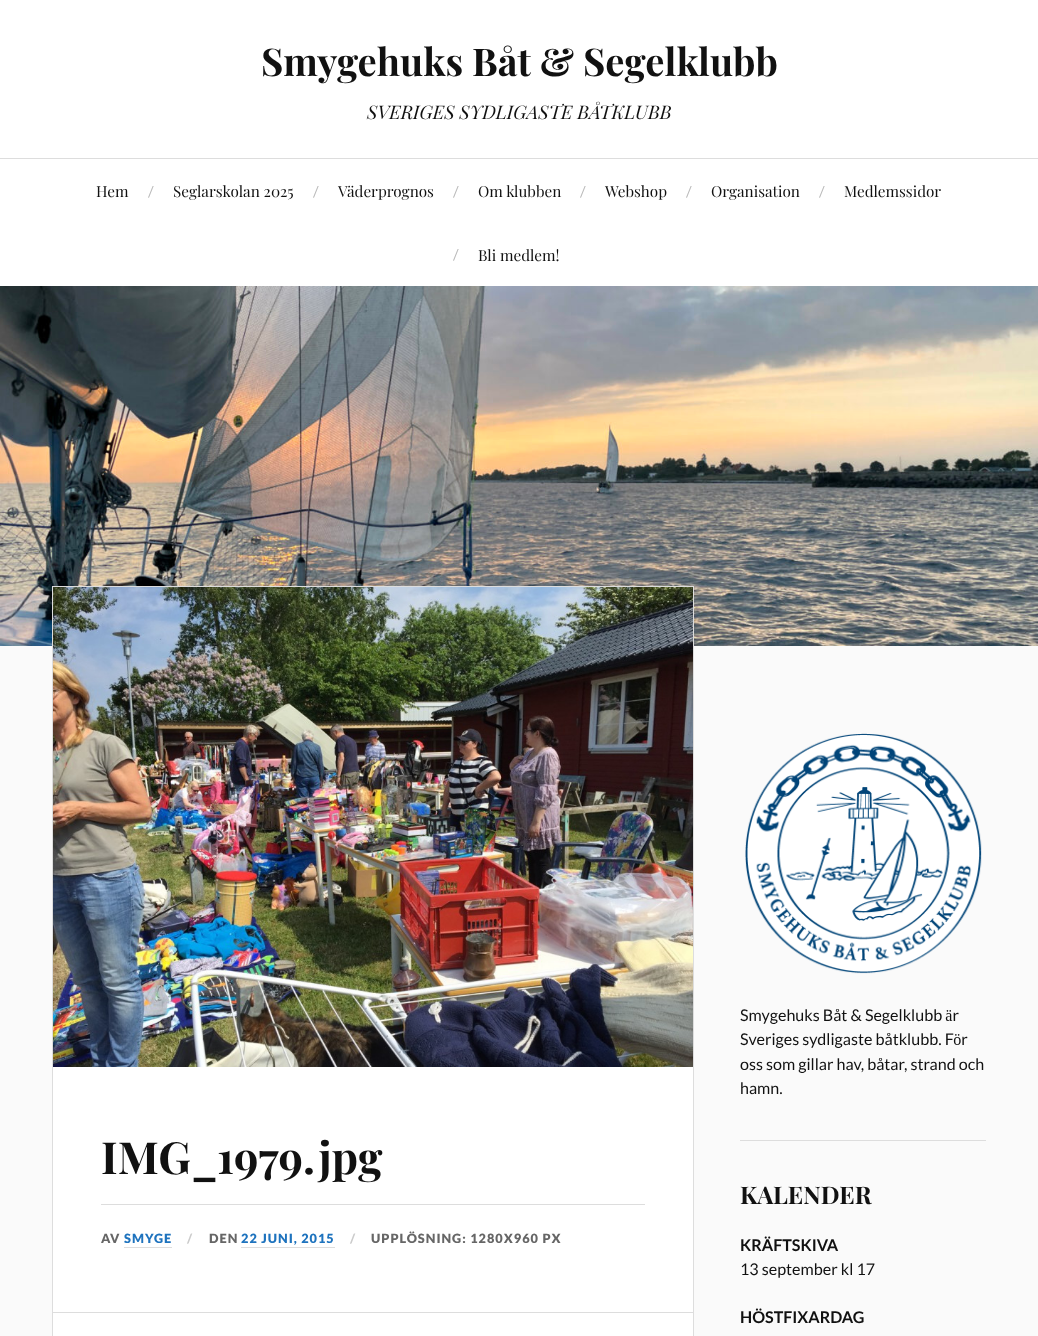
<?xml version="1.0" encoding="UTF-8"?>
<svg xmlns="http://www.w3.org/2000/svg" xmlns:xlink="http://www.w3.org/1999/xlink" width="1038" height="1336">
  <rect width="100%" height="100%" fill="#fafafa" />
  <rect width="1038" height="158" fill="#ffffff" />
  <rect y="159" width="1038" height="127" fill="#ffffff" />
  <rect y="158" width="1038" height="1" fill="#dddddd" />
  <image x="0" y="286" width="1038" height="360" xlink:href="image1.png" />
  <rect x="53" y="1067" width="640" height="269" fill="#ffffff" />
  <rect x="52.5" y="586.5" width="641" height="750" fill="none" stroke="#dddddd" />
  <image x="53" y="587" width="640" height="480" xlink:href="image2.png" />
  <rect x="101" y="1204" width="544" height="1" fill="#dddddd" />
  <rect x="124" y="1247" width="48" height="1" fill="#dddddd" />
  <rect x="241" y="1247" width="94" height="1" fill="#dddddd" />
  <rect x="53" y="1312" width="640" height="1" fill="#dddddd" />
  <image x="745" y="733" width="237" height="241" xlink:href="image3.png" />
  <rect x="740" y="1140" width="246" height="1" fill="#dddddd" />
  <text x="261" y="76" style="font-family: Playfair Display; font-size: 38.25px; font-weight: bold; fill: #111111">Smygehuks Båt &amp; Segelklubb</text>
  <text x="367" y="119" style="font-family: Playfair Display; font-size: 18.75px; font-style: italic; fill: #111111">SVERIGES SYDLIGASTE BÅTKLUBB</text>
  <text x="96" y="197" style="font-family: Playfair Display; font-size: 15.25px; fill: #111111">Hem</text>
  <text x="148" y="197" style="font-family: Lato; font-size: 15px; fill: #bbbbbb">/</text>
  <text x="173" y="197" style="font-family: Playfair Display; font-size: 15.25px; fill: #111111">Seglarskolan 2025</text>
  <text x="313" y="197" style="font-family: Lato; font-size: 15px; fill: #bbbbbb">/</text>
  <text x="338" y="197" style="font-family: Playfair Display; font-size: 15.25px; fill: #111111">Väderprognos</text>
  <text x="453" y="197" style="font-family: Lato; font-size: 15px; fill: #bbbbbb">/</text>
  <text x="478" y="197" style="font-family: Playfair Display; font-size: 15.25px; fill: #111111">Om klubben</text>
  <text x="580" y="197" style="font-family: Lato; font-size: 15px; fill: #bbbbbb">/</text>
  <text x="605" y="197" style="font-family: Playfair Display; font-size: 15.25px; fill: #111111">Webshop</text>
  <text x="686" y="197" style="font-family: Lato; font-size: 15px; fill: #bbbbbb">/</text>
  <text x="711" y="197" style="font-family: Playfair Display; font-size: 15.25px; fill: #111111">Organisation</text>
  <text x="819" y="197" style="font-family: Lato; font-size: 15px; fill: #bbbbbb">/</text>
  <text x="844" y="197" style="font-family: Playfair Display; font-size: 15.25px; fill: #111111">Medlemssidor</text>
  <text x="453" y="260" style="font-family: Lato; font-size: 15px; fill: #bbbbbb">/</text>
  <text x="478" y="261" style="font-family: Playfair Display; font-size: 15.25px; fill: #111111">Bli medlem!</text>
  <text x="101" y="1174" style="font-family: Playfair Display; font-size: 44.25px; font-weight: bold; fill: #111111">IMG_1979.jpg</text>
  <text x="101" y="1243" style="font-family: Lato; font-size: 12.75px; font-weight: 900; letter-spacing: 1px; fill: #666666">AV</text>
  <text x="124" y="1243" style="font-family: Lato; font-size: 12.75px; font-weight: 900; letter-spacing: 1px; fill: #1e73be">SMYGE</text>
  <text x="187" y="1243" style="font-family: Lato; font-size: 12.75px; font-weight: 900; letter-spacing: 1px; fill: #cccccc">/</text>
  <text x="209" y="1243" style="font-family: Lato; font-size: 12.75px; font-weight: 900; letter-spacing: 1px; fill: #666666">DEN</text>
  <text x="241" y="1243" style="font-family: Lato; font-size: 12.75px; font-weight: 900; letter-spacing: 1px; fill: #1e73be">22 JUNI, 2015</text>
  <text x="350" y="1243" style="font-family: Lato; font-size: 12.75px; font-weight: 900; letter-spacing: 1px; fill: #cccccc">/</text>
  <text x="371" y="1243" style="font-family: Lato; font-size: 12.75px; font-weight: 900; letter-spacing: 1px; fill: #666666">UPPLÖSNING: 1280X960 PX</text>
  <text x="740" y="1021" style="font-family: Lato; font-size: 16.1px; fill: #111111">Smygehuks Båt &amp; Segelklubb är</text>
  <text x="740" y="1045" style="font-family: Lato; font-size: 16.1px; fill: #111111">Sveriges sydligaste båtklubb. För</text>
  <text x="740" y="1070" style="font-family: Lato; font-size: 16.1px; fill: #111111">oss som gillar hav, båtar, strand och</text>
  <text x="740" y="1094" style="font-family: Lato; font-size: 16.1px; fill: #111111">hamn.</text>
  <text x="740" y="1204" style="font-family: Playfair Display; font-size: 24.25px; font-weight: bold; fill: #111111">KALENDER</text>
  <text x="740" y="1251" style="font-family: Lato; font-size: 16.1px; font-weight: bold; fill: #111111">KRÄFTSKIVA</text>
  <text x="740" y="1275" style="font-family: Lato; font-size: 16.1px; fill: #111111">13 september kl 17</text>
  <text x="740" y="1323" style="font-family: Lato; font-size: 16.1px; font-weight: bold; fill: #111111">HÖSTFIXARDAG</text>
</svg>
